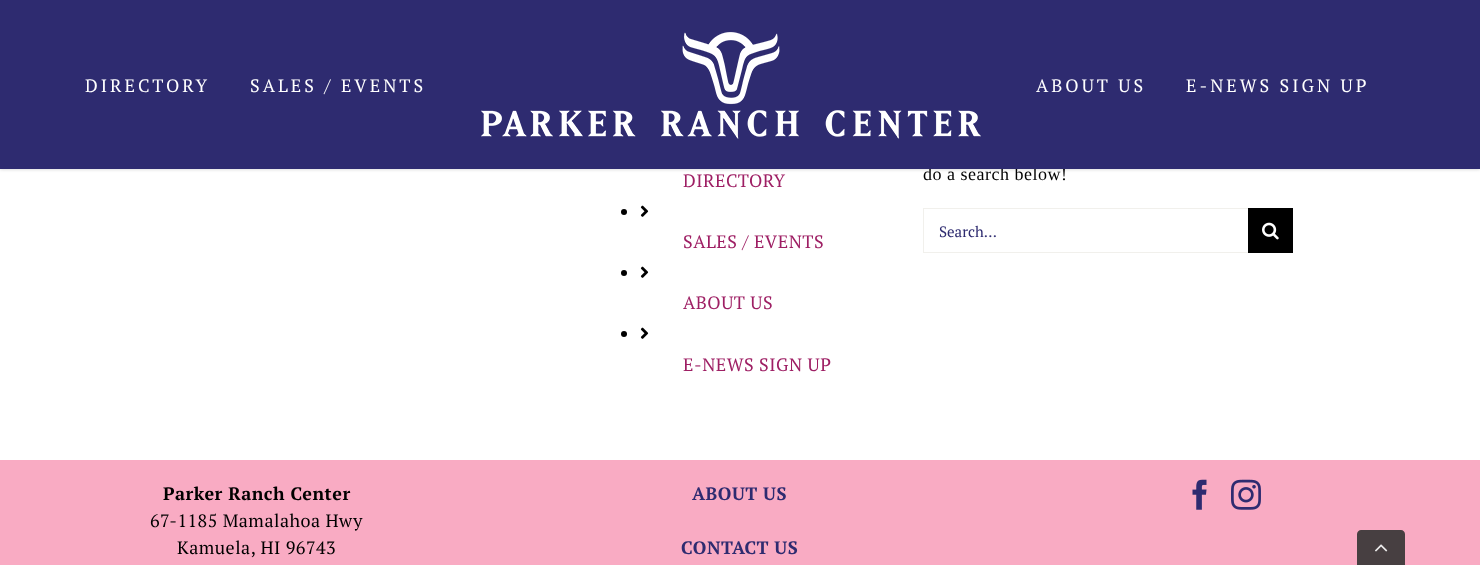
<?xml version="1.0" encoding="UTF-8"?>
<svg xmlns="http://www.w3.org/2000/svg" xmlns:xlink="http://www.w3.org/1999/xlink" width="1480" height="565">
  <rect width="100%" height="100%" fill="#ffffff" />
  <rect y="1" width="1480" height="169" fill="#000000" fill-opacity="0.12" filter="blur(1.5px)" />
  <circle cx="624" cy="212" r="3" fill="#000000" />
  <image x="640" y="205" width="9" height="12" xlink:href="image2.png" />
  <circle cx="624" cy="273" r="3" fill="#000000" />
  <image x="640" y="266" width="9" height="12" xlink:href="image2.png" />
  <circle cx="624" cy="334" r="3" fill="#000000" />
  <image x="640" y="327" width="9" height="12" xlink:href="image2.png" />
  <rect x="923" y="208" width="325" height="1" fill="#f1f0ec" />
  <rect x="923" y="252" width="325" height="1" fill="#f1f0ec" />
  <rect x="923" y="208" width="1" height="45" fill="#f1f0ec" />
  <rect x="1248" y="208" width="45" height="45" fill="#000000" />
  <image x="1262" y="222" width="17" height="18" xlink:href="image3.png" />
  <rect y="460" width="1480" height="105" fill="#f9abc3" />
  <image x="1192" y="479" width="15" height="31" xlink:href="image4.png" />
  <image x="1231" y="479" width="30" height="31" xlink:href="image5.png" />
  <path d="M 1361 530 h 40 c 2 0 4 2 4 4 v 31 h -48 v -31 c 0 -2 2 -4 4 -4 z" fill="#473f41" />
  <image x="1375" y="544" width="13" height="8" xlink:href="image6.png" />
  <text x="683" y="187" style="font-family: PT Serif; font-size: 18px; letter-spacing: 0.5px; fill: #9e1f64">DIRECTORY</text>
  <text x="683" y="248" style="font-family: PT Serif; font-size: 18px; letter-spacing: 0.5px; fill: #9e1f64">SALES / EVENTS</text>
  <text x="683" y="309" style="font-family: PT Serif; font-size: 18px; letter-spacing: 0.5px; fill: #9e1f64">ABOUT US</text>
  <text x="683" y="371" style="font-family: PT Serif; font-size: 18px; letter-spacing: 0.5px; fill: #9e1f64">E-NEWS SIGN UP</text>
  <text x="923" y="180" style="font-family: Liberation Serif; font-size: 18px; letter-spacing: 0.5px; fill: #000000">do a search below!</text>
  <rect width="1480" height="169" fill="#2e2b70" />
  <text x="1186" y="92" style="font-family: PT Serif; font-size: 18px; letter-spacing: 3px; fill: #ffffff">E-NEWS SIGN UP</text>
  <text x="1036" y="92" style="font-family: PT Serif; font-size: 18px; letter-spacing: 3px; fill: #ffffff">ABOUT US</text>
  <image x="481" y="32" width="500" height="107" xlink:href="image1.png" />
  <text x="250" y="92" style="font-family: PT Serif; font-size: 18px; letter-spacing: 3px; fill: #ffffff">SALES / EVENTS</text>
  <text x="85" y="92" style="font-family: PT Serif; font-size: 18px; letter-spacing: 3px; fill: #ffffff">DIRECTORY</text>
  <text x="939" y="237" style="font-family: PT Serif; font-size: 15px; fill: #2e2b70">Search...</text>
  <text x="163" y="500" style="font-family: PT Serif; font-size: 18px; font-weight: bold; letter-spacing: 0.5px; fill: #000000">Parker Ranch Center</text>
  <text x="150" y="527" style="font-family: PT Serif; font-size: 18px; letter-spacing: 0.5px; fill: #000000">67-1185 Mamalahoa Hwy</text>
  <text x="177" y="554" style="font-family: PT Serif; font-size: 18px; letter-spacing: 0.5px; fill: #000000">Kamuela, HI 96743</text>
  <text x="692" y="500" style="font-family: PT Serif; font-size: 18px; font-weight: bold; letter-spacing: 0.5px; fill: #2e2b70">ABOUT US</text>
  <text x="681" y="554" style="font-family: PT Serif; font-size: 18px; font-weight: bold; letter-spacing: 0.5px; fill: #2e2b70">CONTACT US</text>
</svg>
